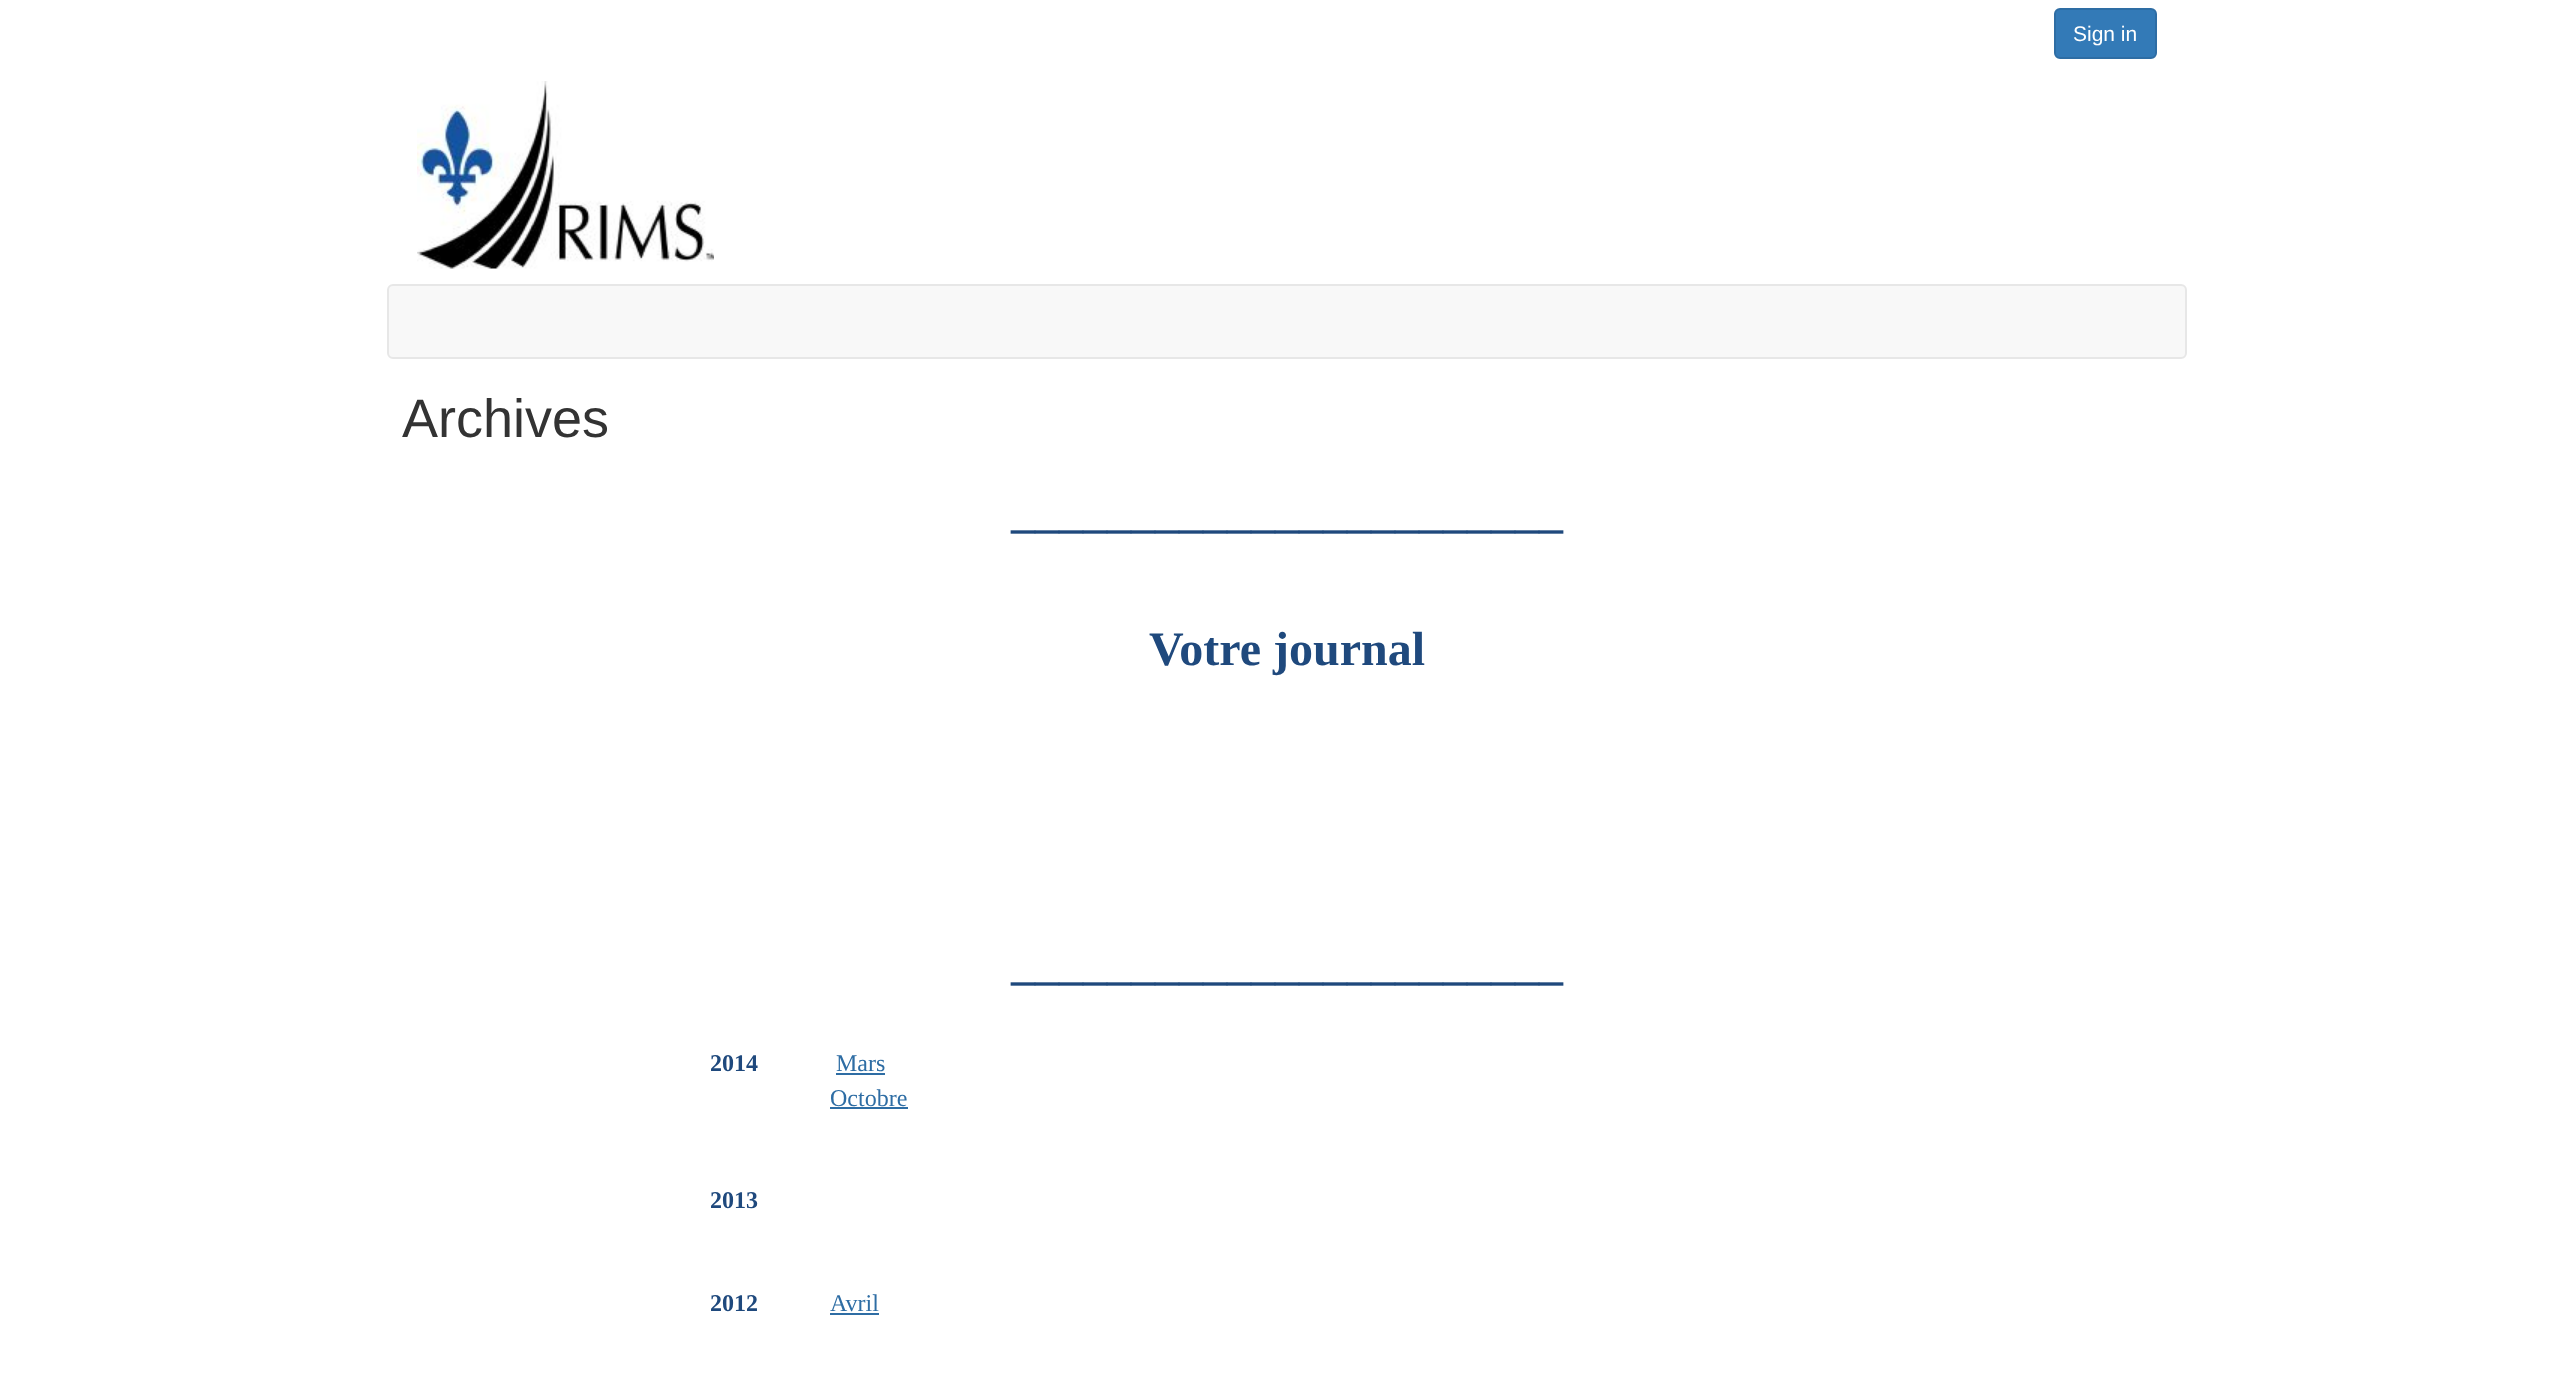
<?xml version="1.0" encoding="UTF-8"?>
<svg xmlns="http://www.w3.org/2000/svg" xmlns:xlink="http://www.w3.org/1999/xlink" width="2573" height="1391">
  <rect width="100%" height="100%" fill="#ffffff" />
  <rect x="2055" y="9" width="101" height="49" rx="5" fill="#337ab7" stroke="#2e6da4" stroke-width="2" />
  <image x="417" y="81" width="297" height="188" xlink:href="image1.png" />
  <rect x="388" y="285" width="1798" height="73" rx="5" fill="#f8f8f8" stroke="#e7e7e7" stroke-width="2" />
  <rect x="836" y="1073" width="49" height="2" fill="#2e6da4" />
  <rect x="830" y="1107" width="78" height="2" fill="#2e6da4" />
  <rect x="830" y="1313" width="49" height="2" fill="#2e6da4" />
  <text x="2073" y="41" style="font-family: Liberation Sans; font-size: 21px; fill: #ffffff">Sign in</text>
  <text x="402" y="437" style="font-family: Liberation Sans; font-size: 54px; fill: #333333">Archives</text>
  <text x="1011" y="527" style="font-family: Liberation Serif; font-size: 48px; font-weight: bold; fill: #1f497d">_______________________</text>
  <text x="1149" y="665" style="font-family: Liberation Serif; font-size: 48px; font-weight: bold; fill: #1f497d">Votre journal</text>
  <text x="1011" y="979" style="font-family: Liberation Serif; font-size: 48px; font-weight: bold; fill: #1f497d">_______________________</text>
  <text x="710" y="1071" style="font-family: Liberation Serif; font-size: 24px; font-weight: bold; fill: #1f497d">2014</text>
  <text x="836" y="1071" style="font-family: Liberation Serif; font-size: 24px; fill: #2e6da4">Mars</text>
  <text x="830" y="1106" style="font-family: Liberation Serif; font-size: 24px; fill: #2e6da4">Octobre</text>
  <text x="710" y="1208" style="font-family: Liberation Serif; font-size: 24px; font-weight: bold; fill: #1f497d">2013</text>
  <text x="710" y="1311" style="font-family: Liberation Serif; font-size: 24px; font-weight: bold; fill: #1f497d">2012</text>
  <text x="830" y="1311" style="font-family: Liberation Serif; font-size: 24px; fill: #2e6da4">Avril</text>
</svg>
